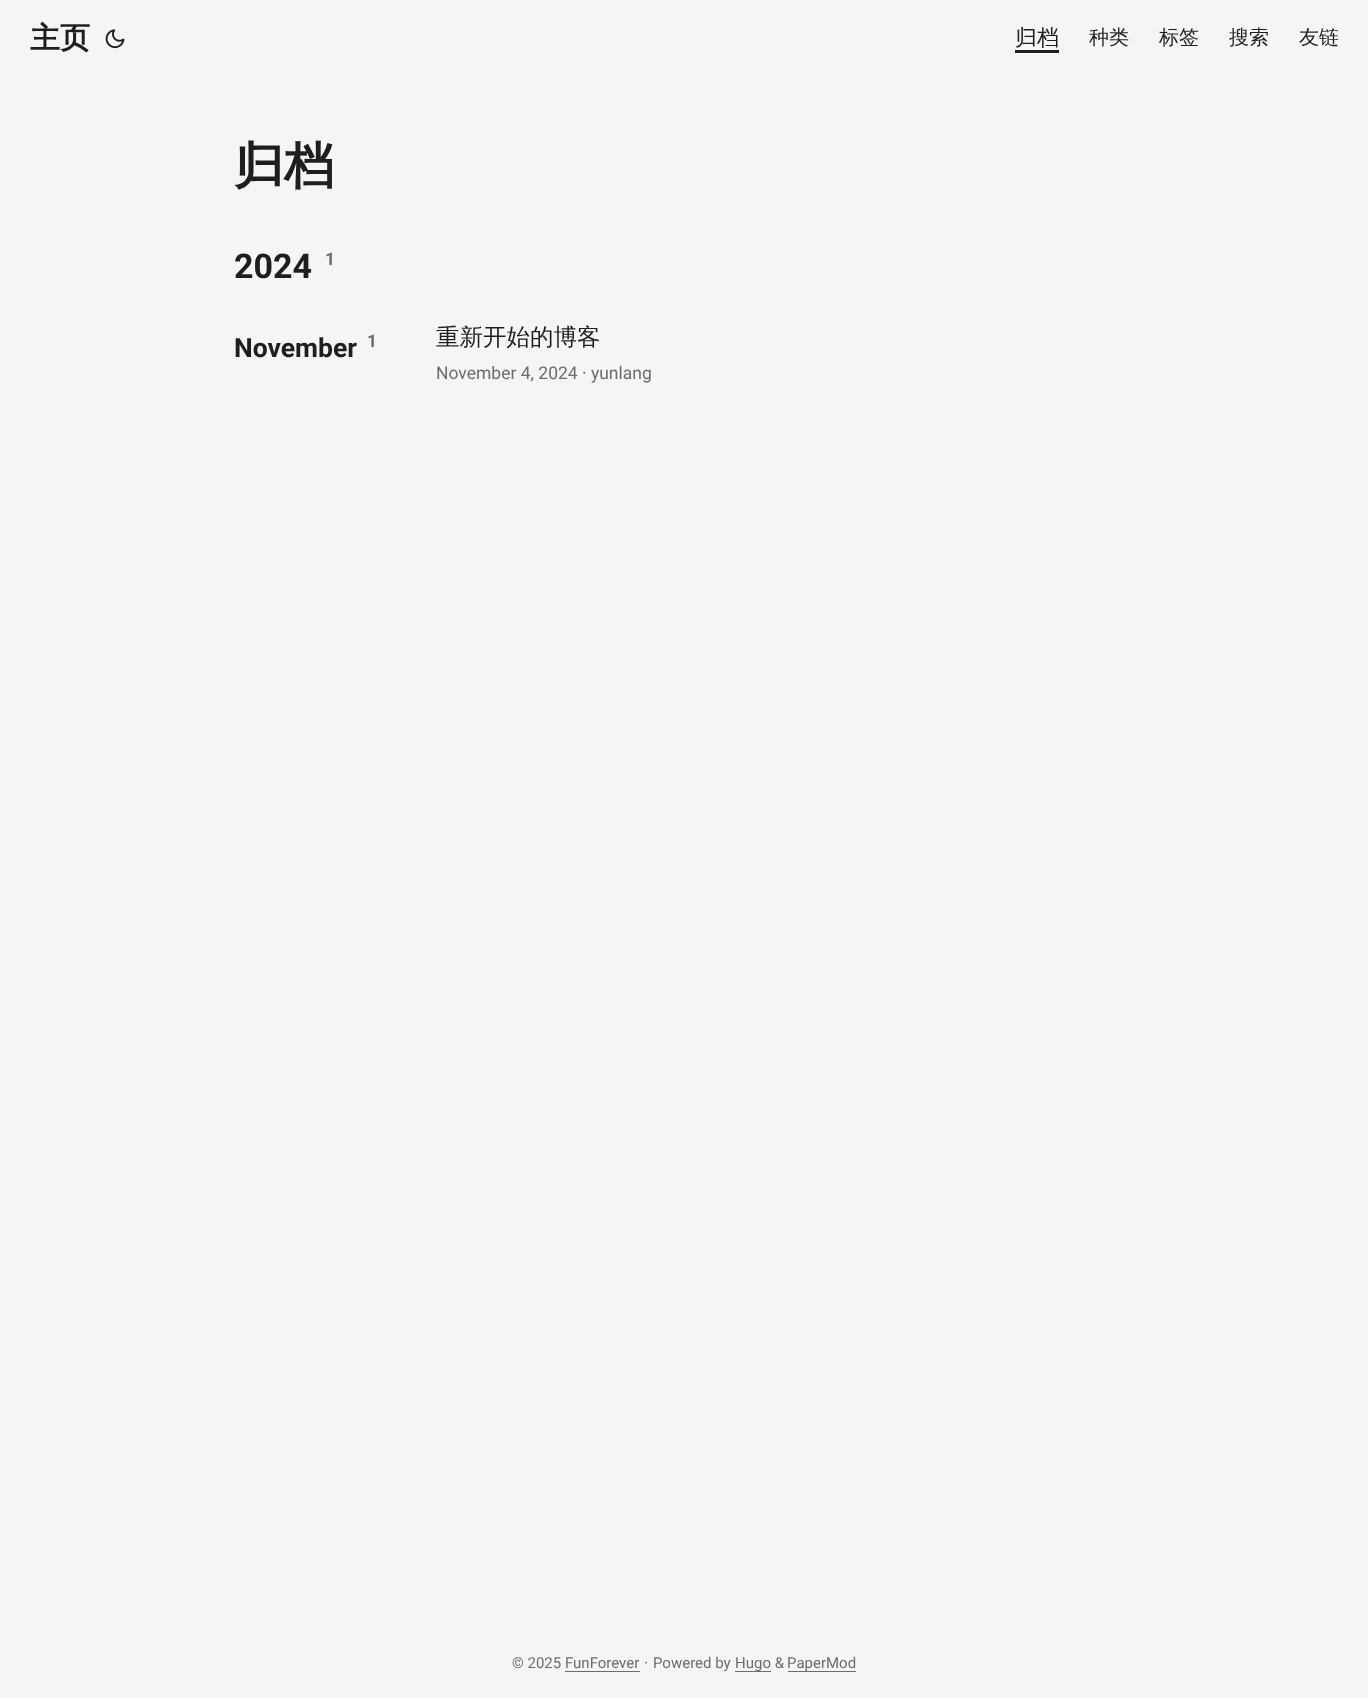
<?xml version="1.0" encoding="UTF-8"?>
<svg xmlns="http://www.w3.org/2000/svg" xmlns:xlink="http://www.w3.org/1999/xlink" width="1368" height="1698">
  <rect width="100%" height="100%" fill="#f5f5f5" />
  <image x="105" y="29" width="20" height="20" xlink:href="image1.png" />
  <rect x="1015" y="50" width="44" height="3" fill="#1e1e1e" />
  <rect x="565" y="1671" width="75" height="1" fill="#6c6c6c" />
  <rect x="735" y="1671" width="36" height="1" fill="#6c6c6c" />
  <rect x="788" y="1671" width="68" height="1" fill="#6c6c6c" />
  <text x="30" y="48" style="font-family: WenQuanYi Zen Hei; font-size: 30px; font-weight: bold; fill: #1e1e1e">主页</text>
  <text x="1015" y="45" style="font-family: WenQuanYi Zen Hei; font-size: 22px; font-weight: 500; fill: #1e1e1e">归档</text>
  <text x="1089" y="44" style="font-family: WenQuanYi Zen Hei; font-size: 20px; font-weight: 500; fill: #1e1e1e">种类</text>
  <text x="1159" y="44" style="font-family: WenQuanYi Zen Hei; font-size: 20px; font-weight: 500; fill: #1e1e1e">标签</text>
  <text x="1229" y="44" style="font-family: WenQuanYi Zen Hei; font-size: 20px; font-weight: 500; fill: #1e1e1e">搜索</text>
  <text x="1299" y="44" style="font-family: WenQuanYi Zen Hei; font-size: 20px; font-weight: 500; fill: #1e1e1e">友链</text>
  <text x="234" y="183" style="font-family: WenQuanYi Zen Hei; font-size: 50px; font-weight: bold; fill: #1e1e1e">归档</text>
  <text x="234" y="278" style="font-family: Roboto; font-size: 34px; font-weight: bold; fill: #1e1e1e">2024</text>
  <text x="325" y="265" style="font-family: Roboto; font-size: 17.5px; font-weight: bold; fill: #6c6c6c">1</text>
  <text x="234" y="357" style="font-family: Roboto; font-size: 26.5px; font-weight: bold; fill: #1e1e1e">November</text>
  <text x="367" y="347" style="font-family: Roboto; font-size: 17.5px; font-weight: bold; fill: #6c6c6c">1</text>
  <text x="436" y="345" style="font-family: WenQuanYi Zen Hei; font-size: 23.5px; font-weight: 500; fill: #1e1e1e">重新开始的博客</text>
  <text x="436" y="379" style="font-family: Roboto; font-size: 17.5px; fill: #6c6c6c">November 4, 2024 · yunlang</text>
  <text x="512" y="1668" style="font-family: Roboto; font-size: 15px; fill: #6c6c6c">© 2025 FunForever</text>
  <text x="644" y="1668" style="font-family: Roboto; font-size: 15px; fill: #6c6c6c">·</text>
  <text x="653" y="1668" style="font-family: Roboto; font-size: 15px; fill: #6c6c6c">Powered by</text>
  <text x="735" y="1668" style="font-family: Roboto; font-size: 15px; fill: #6c6c6c">Hugo &amp;</text>
  <text x="787" y="1668" style="font-family: Roboto; font-size: 15px; fill: #6c6c6c">PaperMod</text>
</svg>
